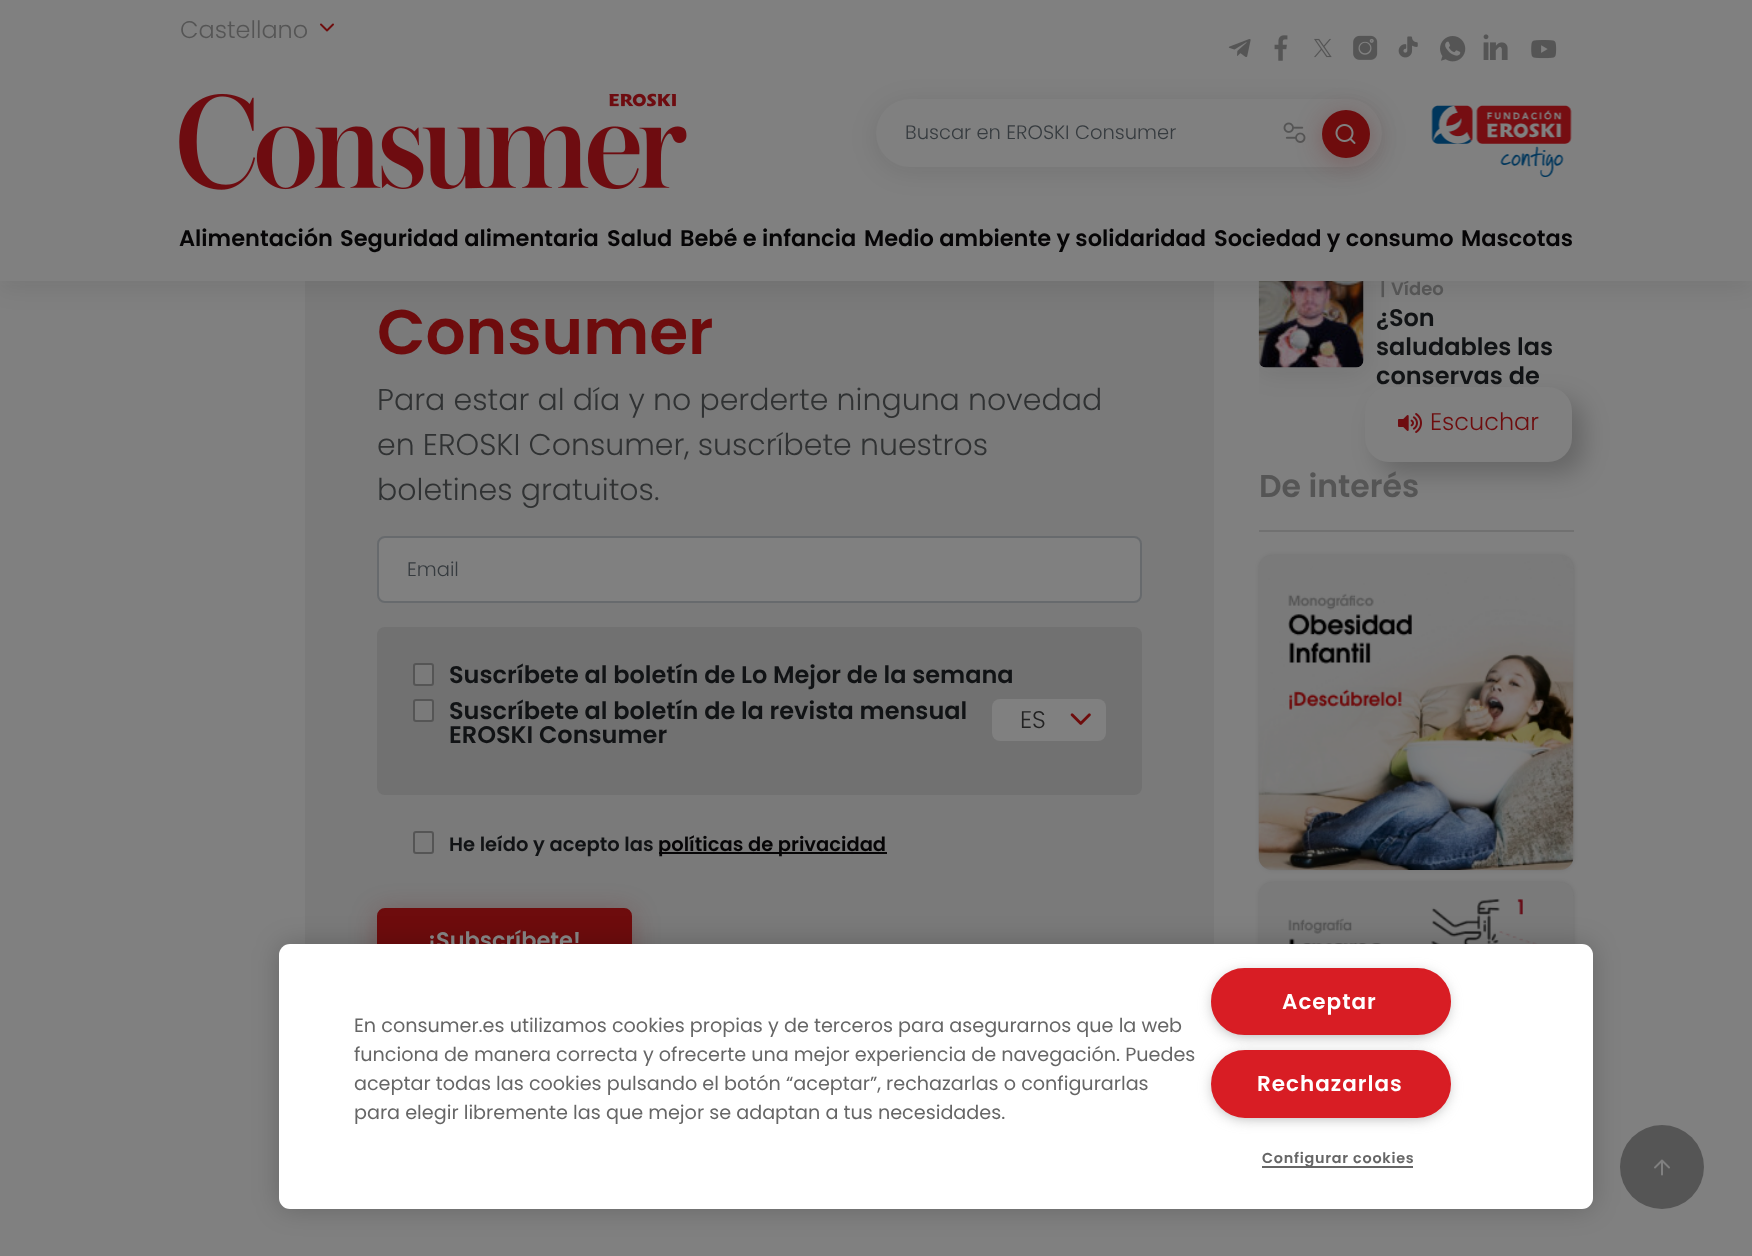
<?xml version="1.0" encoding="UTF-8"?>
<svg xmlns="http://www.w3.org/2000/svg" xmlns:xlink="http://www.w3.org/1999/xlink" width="1752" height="1256">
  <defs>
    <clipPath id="clip1"><rect x="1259" y="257" width="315" height="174" rx="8" /></clipPath>
  </defs>
  <rect width="100%" height="100%" fill="#808080" />
  <rect x="305" y="281" width="909" height="663" fill="#7a7a7a" />
  <g clip-path="url(#clip1)">
    <rect x="1259" y="267" width="105" height="105" rx="8" fill="#060506" fill-opacity="0.1" filter="blur(13.5px)" />
  </g>
  <image x="1258" y="281" width="106" height="87" xlink:href="image15.png" />
  <rect y="5" width="1752" height="280" fill="#060506" fill-opacity="0.1" filter="blur(13.5px)" />
  <rect x="378" y="537" width="763" height="65" rx="7" fill="#808080" stroke="#676a6d" stroke-width="2" />
  <rect x="377" y="627" width="765" height="168" rx="8" fill="#717171" />
  <rect x="414" y="664" width="19" height="21" rx="2" fill="#7a7a7a" stroke="#555555" stroke-width="2" />
  <rect x="414" y="700" width="19" height="21" rx="2" fill="#7a7a7a" stroke="#555555" stroke-width="2" />
  <rect x="992" y="699" width="114" height="42" rx="8" fill="#808080" />
  <image x="1070" y="713" width="21" height="12" xlink:href="image14.png" />
  <rect x="414" y="832" width="19" height="21" rx="2" fill="none" stroke="#555555" stroke-width="2" />
  <rect x="659" y="852" width="228" height="2" fill="#060506" />
  <rect x="377" y="912" width="255" height="68" rx="8" fill="#6e0c0d" fill-opacity="0.3" filter="blur(13.5px)" />
  <rect x="378" y="909" width="253" height="65" rx="7" fill="#6e0c0d" stroke="#6e0c0d" stroke-width="2" />
  <rect x="1259" y="530" width="315" height="2" fill="#717171" />
  <rect x="1259" y="555" width="315" height="315" rx="14" fill="#060506" fill-opacity="0.1" filter="blur(2px)" />
  <image x="1258" y="555" width="316" height="315" xlink:href="image16.png" />
  <rect x="1259" y="882" width="315" height="315" rx="14" fill="#060506" fill-opacity="0.1" filter="blur(2px)" />
  <image x="1258" y="882" width="316" height="62" xlink:href="image17.png" />
  <rect x="1377" y="399" width="207" height="75" rx="24" fill="#000000" fill-opacity="0.2" filter="blur(12px)" />
  <rect x="1365" y="387" width="207" height="75" rx="24" fill="#808080" />
  <image x="1398" y="413" width="24" height="20" xlink:href="image18.png" />
  <circle cx="1662" cy="1167" r="42" fill="#555555" />
  <rect x="279" y="944" width="1314" height="265" rx="11" fill="#000000" fill-opacity="0.2" filter="blur(13.5px)" />
  <image x="1654" y="1159" width="16" height="17" xlink:href="image19.png" />
  <text x="377" y="354" style="font-family: Poppins; font-size: 63px; font-weight: 600; fill: #6e0c0d">Consumer</text>
  <text x="377" y="410" style="font-family: Poppins; font-size: 30px; font-weight: 300; fill: #303233">Para estar al día y no perderte ninguna novedad</text>
  <text x="377" y="455" style="font-family: Poppins; font-size: 30px; font-weight: 300; fill: #303233">en EROSKI Consumer, suscríbete nuestros</text>
  <text x="377" y="500" style="font-family: Poppins; font-size: 30px; font-weight: 300; fill: #303233">boletines gratuitos.</text>
  <text x="407" y="576" style="font-family: Poppins; font-size: 19.5px; font-weight: 300; fill: #363b3f">Email</text>
  <text x="449" y="683" style="font-family: Poppins; font-size: 24px; font-weight: 600; fill: #111315">Suscríbete al boletín de Lo Mejor de la semana</text>
  <text x="449" y="719" style="font-family: Poppins; font-size: 24px; font-weight: 600; fill: #111315">Suscríbete al boletín de la revista mensual</text>
  <text x="449" y="743" style="font-family: Poppins; font-size: 24px; font-weight: 600; fill: #111315">EROSKI Consumer</text>
  <text x="1020" y="728" style="font-family: Poppins; font-size: 24px; font-weight: 300; fill: #222222">ES</text>
  <text x="449" y="851" style="font-family: Poppins; font-size: 19.5px; font-weight: 600; fill: #111315">He leído y acepto las</text>
  <text x="658" y="851" style="font-family: Poppins; font-size: 19.5px; font-weight: 600; fill: #060506">políticas de privacidad</text>
  <text x="428" y="948" style="font-family: Poppins; font-size: 22.5px; font-weight: 600; fill: #808080">¡Subscríbete!</text>
  <text x="1380" y="295" style="font-family: Poppins; font-size: 18px; font-weight: 600; fill: #555555">|</text>
  <text x="1391" y="295" style="font-family: Poppins; font-size: 18px; font-weight: 600; fill: #555555">Vídeo</text>
  <rect width="1752" height="281" fill="#808080" />
  <rect x="876" y="104" width="506" height="67" rx="33.5" fill="#060506" fill-opacity="0.1" filter="blur(13.5px)" />
  <rect x="876" y="99" width="506" height="68" rx="34" fill="#808080" />
  <image x="1283" y="122" width="23" height="21" xlink:href="image12.png" />
  <rect x="1322" y="114" width="48" height="48" rx="24" fill="#6e0c0d" fill-opacity="0.3" filter="blur(13.5px)" />
  <circle cx="1346" cy="134" r="24" fill="#6e0c0d" />
  <image x="1335" y="124" width="21" height="20" xlink:href="image11.png" />
  <text x="905" y="139" style="font-family: Poppins; font-size: 19.5px; font-weight: 300; fill: #363b3f">Buscar en EROSKI Consumer</text>
  <image x="1431" y="105" width="141" height="72" xlink:href="image13.png" />
  <image x="179" y="93" width="508" height="97" xlink:href="image10.png" />
  <image x="320" y="23" width="14" height="9" xlink:href="image1.png" />
  <text x="180" y="38" style="font-family: Poppins; font-size: 24px; font-weight: 300; fill: #555555">Castellano</text>
  <text x="1461" y="246" style="font-family: Poppins; font-size: 22.5px; font-weight: 600; fill: #060506">Mascotas</text>
  <text x="1214" y="246" style="font-family: Poppins; font-size: 22.5px; font-weight: 600; fill: #060506">Sociedad y consumo</text>
  <text x="864" y="246" style="font-family: Poppins; font-size: 22.5px; font-weight: 600; fill: #060506">Medio ambiente y solidaridad</text>
  <text x="680" y="246" style="font-family: Poppins; font-size: 22.5px; font-weight: 600; fill: #060506">Bebé e infancia</text>
  <text x="607" y="246" style="font-family: Poppins; font-size: 22.5px; font-weight: 600; fill: #060506">Salud</text>
  <text x="340" y="246" style="font-family: Poppins; font-size: 22.5px; font-weight: 600; fill: #060506">Seguridad alimentaria</text>
  <text x="179" y="246" style="font-family: Poppins; font-size: 22.5px; font-weight: 600; fill: #060506">Alimentación</text>
  <image x="1531" y="40" width="26" height="19" xlink:href="image9.png" />
  <image x="1483" y="34" width="25" height="26" xlink:href="image8.png" />
  <image x="1440" y="36" width="26" height="26" xlink:href="image7.png" />
  <image x="1398" y="36" width="20" height="22" xlink:href="image6.png" />
  <image x="1353" y="35" width="25" height="25" xlink:href="image5.png" />
  <image x="1314" y="38" width="18" height="20" xlink:href="image4.png" />
  <image x="1274" y="35" width="14" height="26" xlink:href="image3.png" />
  <image x="1228" y="39" width="23" height="18" xlink:href="image2.png" />
  <text x="1376" y="326" style="font-family: Poppins; font-size: 24px; font-weight: 600; fill: #111315">¿Son</text>
  <text x="1376" y="355" style="font-family: Poppins; font-size: 24px; font-weight: 600; fill: #111315">saludables las</text>
  <text x="1376" y="384" style="font-family: Poppins; font-size: 24px; font-weight: 600; fill: #111315">conservas de</text>
  <text x="1259" y="497" style="font-family: Poppins; font-size: 31.5px; font-weight: 600; fill: #555555">De interés</text>
  <text x="1430" y="430" style="font-family: Poppins; font-size: 24px; font-weight: 300; fill: #6e0c0d">Escuchar</text>
  <rect x="279" y="944" width="1314" height="265" rx="11" fill="#ffffff" />
  <text x="354" y="1032" style="font-family: Poppins; font-size: 19.2px; fill: #666666">En consumer.es utilizamos cookies propias y de terceros para asegurarnos que la web</text>
  <text x="354" y="1090" style="font-family: Poppins; font-size: 19.2px; fill: #666666">aceptar todas las cookies pulsando el botón “aceptar”, rechazarlas o configurarlas</text>
  <text x="354" y="1119" style="font-family: Poppins; font-size: 19.2px; fill: #666666">para elegir libremente las que mejor se adaptan a tus necesidades.</text>
  <rect x="1215" y="975" width="231" height="59" rx="29.5" fill="#999999" filter="blur(7.5px)" />
  <rect x="1212" y="969" width="238" height="65" rx="32.5" fill="#d81d24" stroke="#d81d24" stroke-width="2" />
  <text x="1282" y="1009" style="font-family: Poppins; font-size: 21.5px; font-weight: 600; letter-spacing: 1px; fill: #ffffff">Aceptar</text>
  <rect x="1215" y="1058" width="231" height="58" rx="29" fill="#999999" filter="blur(7.5px)" />
  <text x="354" y="1061" style="font-family: Poppins; font-size: 19.2px; fill: #666666">funciona de manera correcta y ofrecerte una mejor experiencia de navegación. Puedes</text>
  <rect x="1212" y="1051" width="238" height="66" rx="33" fill="#d81d24" stroke="#d81d24" stroke-width="2" />
  <text x="1257" y="1091" style="font-family: Poppins; font-size: 21.5px; font-weight: 600; letter-spacing: 1px; fill: #ffffff">Rechazarlas</text>
  <rect x="1262" y="1166" width="151" height="2" fill="#666666" />
  <text x="1262" y="1163" style="font-family: Poppins; font-size: 14.4px; font-weight: 600; letter-spacing: 0.75px; fill: #666666">Configurar cookies</text>
</svg>
